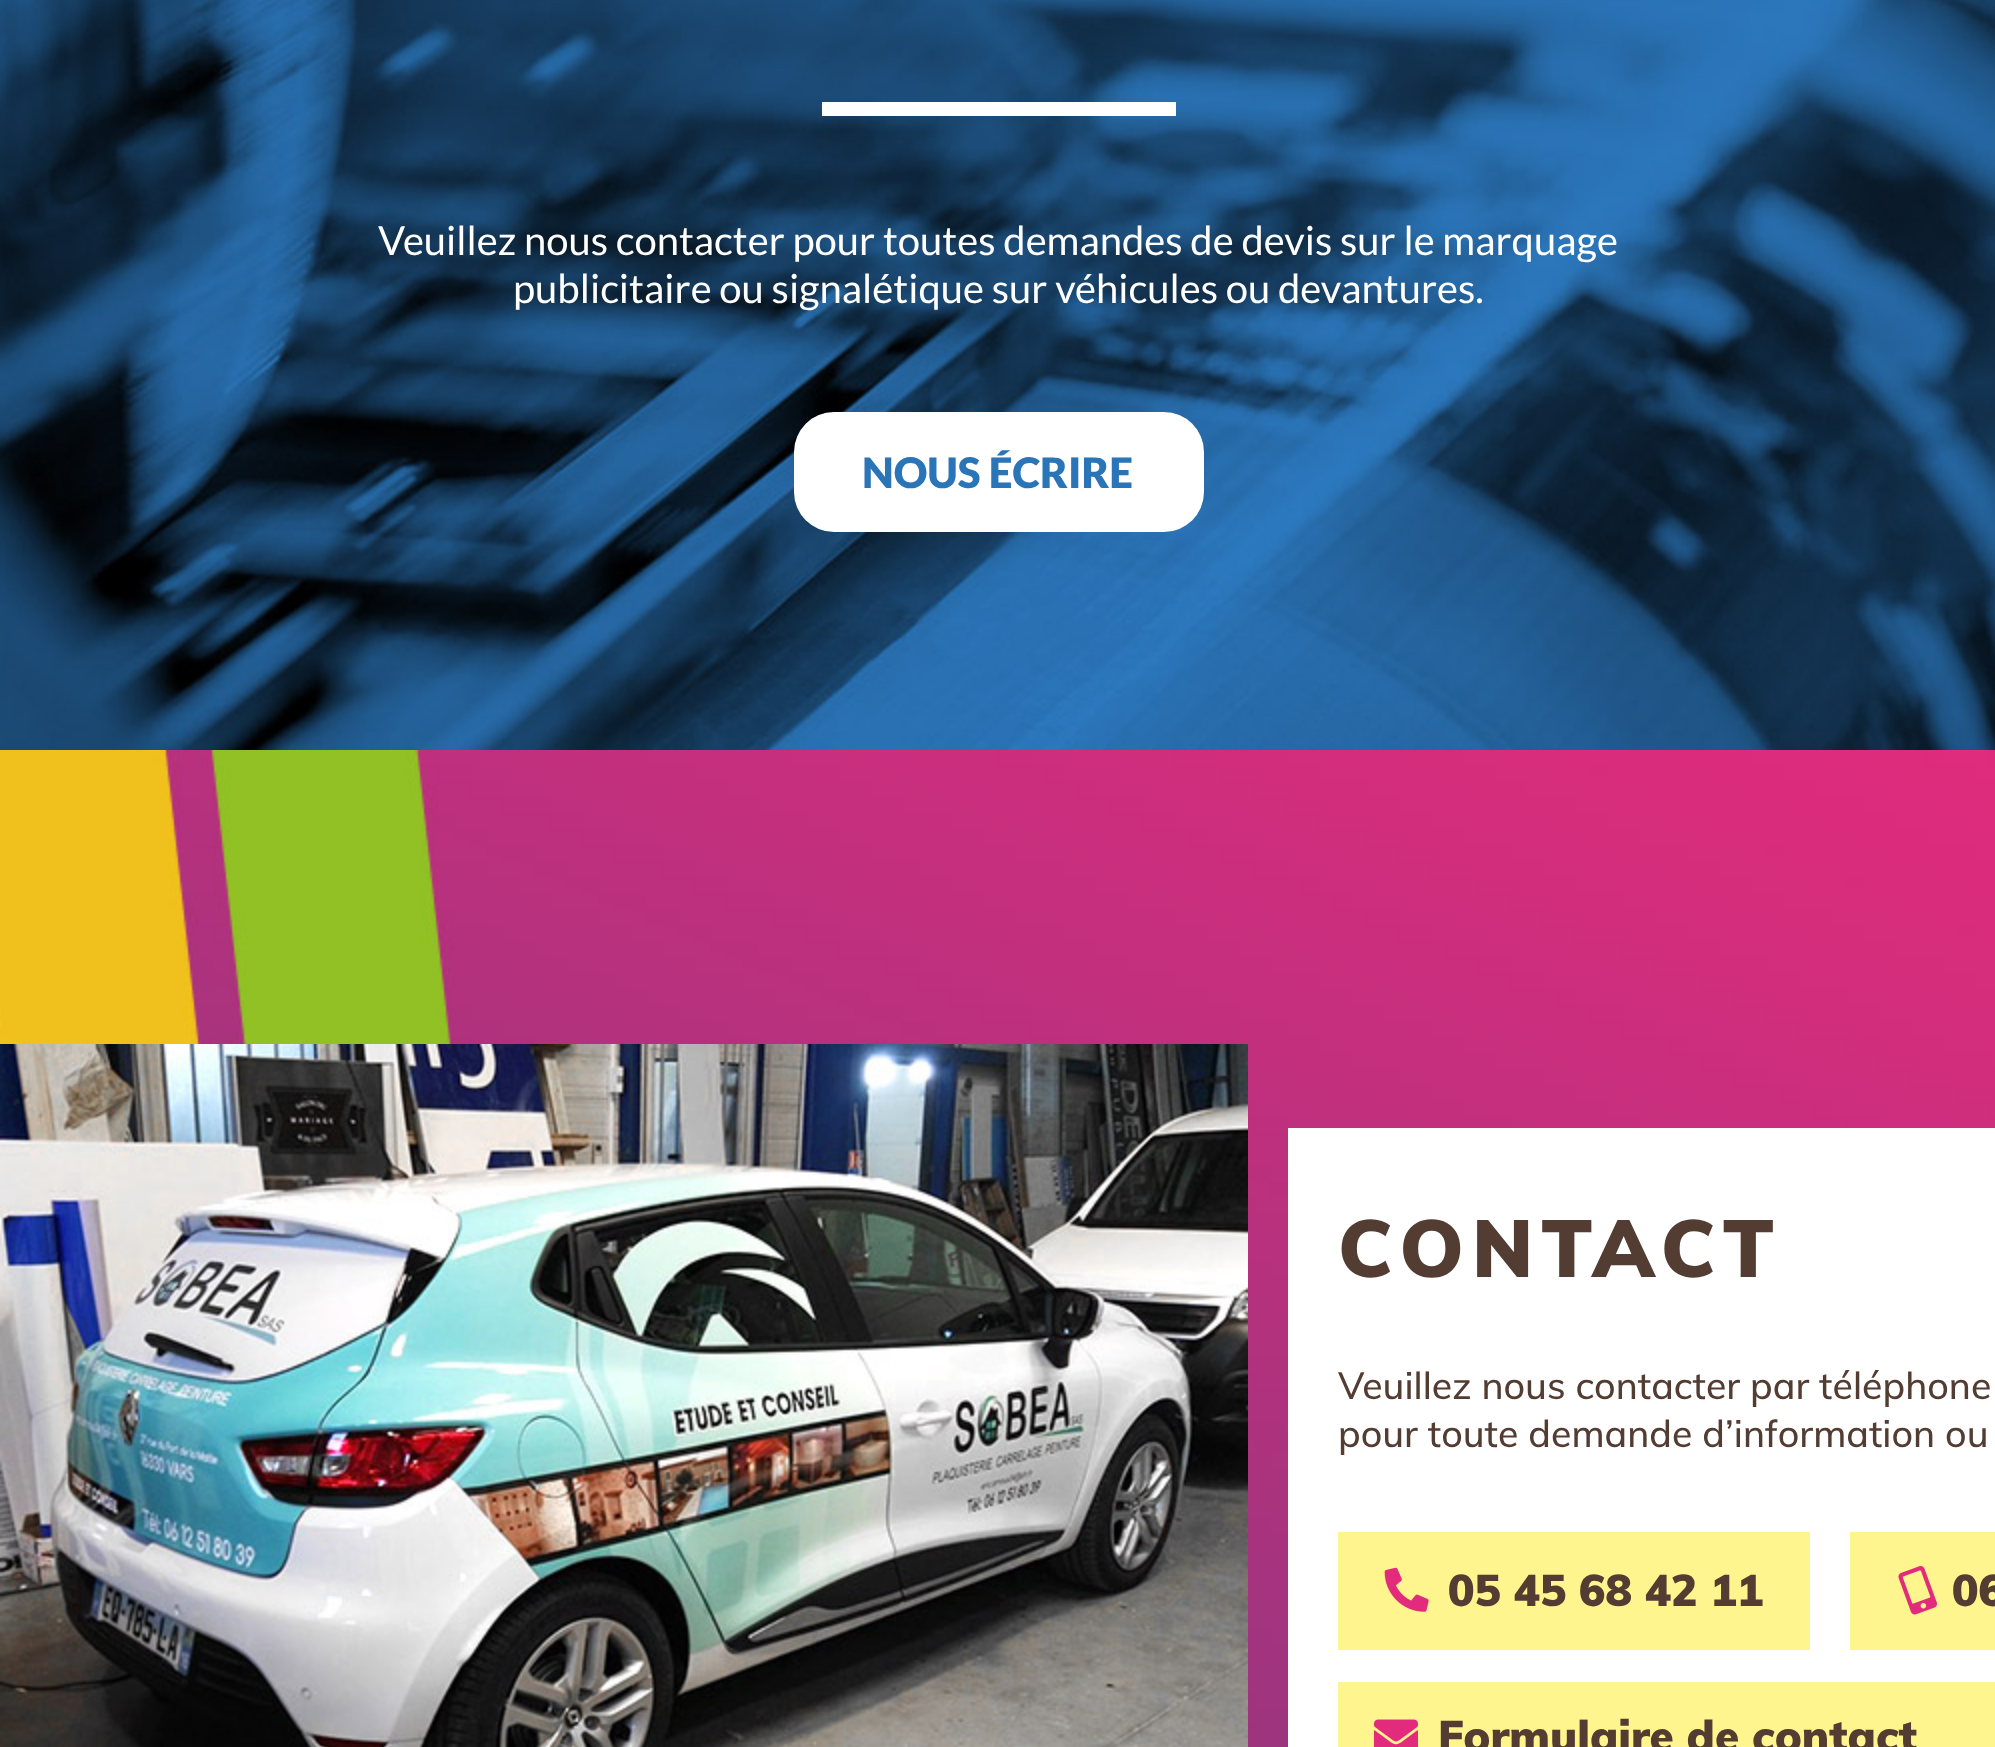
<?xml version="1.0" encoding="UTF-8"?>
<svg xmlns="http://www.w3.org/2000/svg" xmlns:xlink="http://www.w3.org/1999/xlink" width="1995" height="1747">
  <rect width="100%" height="100%" fill="#ffffff" />
  <image x="0" y="0" width="1995" height="750" xlink:href="image1.png" />
  <rect x="822" y="102" width="354" height="14" fill="#ffffff" />
  <rect x="794" y="412" width="410" height="120" rx="40" fill="#ffffff" />
  <image x="0" y="750" width="1995" height="997" xlink:href="image2.png" />
  <image x="0" y="1044" width="1248" height="703" xlink:href="image3.png" />
  <rect x="1288" y="1128" width="707" height="619" fill="#ffffff" />
  <rect x="1338" y="1532" width="472" height="118" fill="#fff58e" />
  <image x="1384" y="1567" width="45" height="45" xlink:href="image4.png" />
  <rect x="1850" y="1532" width="145" height="118" fill="#fff58e" />
  <image x="1898" y="1566" width="39" height="49" xlink:href="image5.png" />
  <rect x="1338" y="1682" width="657" height="65" fill="#fff58e" />
  <image x="1374" y="1719" width="44" height="28" xlink:href="image6.png" />
  <text x="378" y="255" style="font-family: Lato; font-size: 40px; fill: #ffffff">Veuillez nous contacter pour toutes demandes de devis sur le marquage</text>
  <text x="513" y="303" style="font-family: Lato; font-size: 40px; fill: #ffffff">publicitaire ou signalétique sur véhicules ou devantures.</text>
  <text x="862" y="488" style="font-family: Lato; font-size: 42px; font-weight: 900; fill: #2a74b8">NOUS ÉCRIRE</text>
  <text x="1338" y="1277" style="font-family: Muli; font-size: 80px; font-weight: 900; letter-spacing: 8px; fill: #533d32">CONTACT</text>
  <text x="1338" y="1399" style="font-family: Muli; font-size: 37.5px; font-weight: 500; fill: #533d32">Veuillez nous contacter par téléphone</text>
  <text x="1338" y="1447" style="font-family: Muli; font-size: 37.5px; font-weight: 500; fill: #533d32">pour toute demande d’information ou</text>
  <text x="1448" y="1606" style="font-family: Muli; font-size: 44px; font-weight: 900; fill: #533d32">05 45 68 42 11</text>
  <text x="1952" y="1606" style="font-family: Muli; font-size: 44px; font-weight: 900; fill: #533d32">06</text>
  <text x="1438" y="1752" style="font-family: Muli; font-size: 44px; font-weight: 900; fill: #533d32">Formulaire de contact</text>
</svg>
